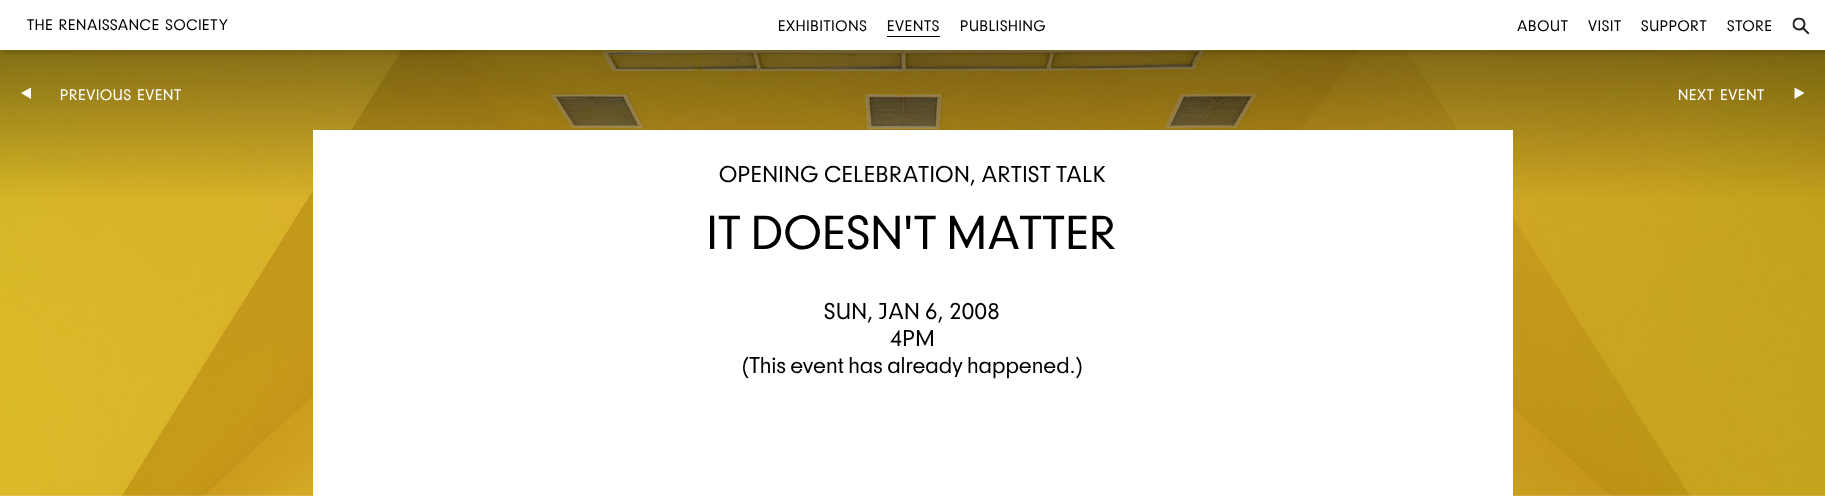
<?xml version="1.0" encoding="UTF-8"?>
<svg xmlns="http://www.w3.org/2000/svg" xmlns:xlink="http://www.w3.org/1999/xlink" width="1825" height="496">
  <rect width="100%" height="100%" fill="#ffffff" />
  <image x="0" y="50" width="1825" height="446" xlink:href="image2.png" />
  <rect x="4" y="4" width="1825" height="50" fill="#000000" fill-opacity="0.1" filter="blur(1.5px)" />
  <rect x="2" y="2" width="1823" height="48" fill="#ffffff" />
  <rect x="887" y="36" width="53" height="1" fill="#000000" />
  <image x="1792" y="17" width="18" height="18" xlink:href="image1.png" />
  <path d="M 31 87.5 l -10 5.5 l 10 6 z" fill="#ffffff" />
  <path d="M 1794.5 99 l 10 -6 l -10 -5.5 z" fill="#ffffff" />
  <rect x="313" y="130" width="1200" height="366" fill="#ffffff" />
  <text x="27" y="30" style="font-family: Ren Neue; font-size: 16px; letter-spacing: 0.75px; fill: #000000">THE RENAISSANCE SOCIETY</text>
  <text x="778" y="31" style="font-family: Ren Neue; font-size: 16px; letter-spacing: 0.75px; fill: #000000">EXHIBITIONS</text>
  <text x="887" y="31" style="font-family: Ren Neue; font-size: 16px; letter-spacing: 0.75px; fill: #000000">EVENTS</text>
  <text x="960" y="31" style="font-family: Ren Neue; font-size: 16px; letter-spacing: 0.75px; fill: #000000">PUBLISHING</text>
  <text x="1517" y="31" style="font-family: Ren Neue; font-size: 16px; letter-spacing: 0.75px; fill: #000000">ABOUT</text>
  <text x="1588" y="31" style="font-family: Ren Neue; font-size: 16px; letter-spacing: 0.75px; fill: #000000">VISIT</text>
  <text x="1641" y="31" style="font-family: Ren Neue; font-size: 16px; letter-spacing: 0.75px; fill: #000000">SUPPORT</text>
  <text x="1727" y="31" style="font-family: Ren Neue; font-size: 16px; letter-spacing: 0.75px; fill: #000000">STORE</text>
  <text x="60" y="100" style="font-family: Ren Neue; font-size: 16px; letter-spacing: 0.75px; fill: #ffffff">PREVIOUS EVENT</text>
  <text x="1678" y="100" style="font-family: Ren Neue; font-size: 16px; letter-spacing: 0.75px; fill: #ffffff">NEXT EVENT</text>
  <text x="719" y="182" word-spacing="-3" style="font-family: Ren Neue; font-size: 24px; letter-spacing: 0.75px; fill: #000000">OPENING CELEBRATION, ARTIST TALK</text>
  <text x="707" y="249" word-spacing="-6" style="font-family: Ren Neue; font-size: 50px; letter-spacing: 1px; fill: #000000">IT DOESN'T MATTER</text>
  <text x="824" y="319" word-spacing="-3" style="font-family: Ren Neue; font-size: 24px; letter-spacing: 0.75px; fill: #000000">SUN, JAN 6, 2008</text>
  <text x="890" y="346" style="font-family: Ren Neue; font-size: 24px; letter-spacing: 0.75px; fill: #000000">4PM</text>
  <text x="742" y="373" word-spacing="-3" style="font-family: Ren Neue; font-size: 24px; fill: #000000">(This event has already happened.)</text>
</svg>
